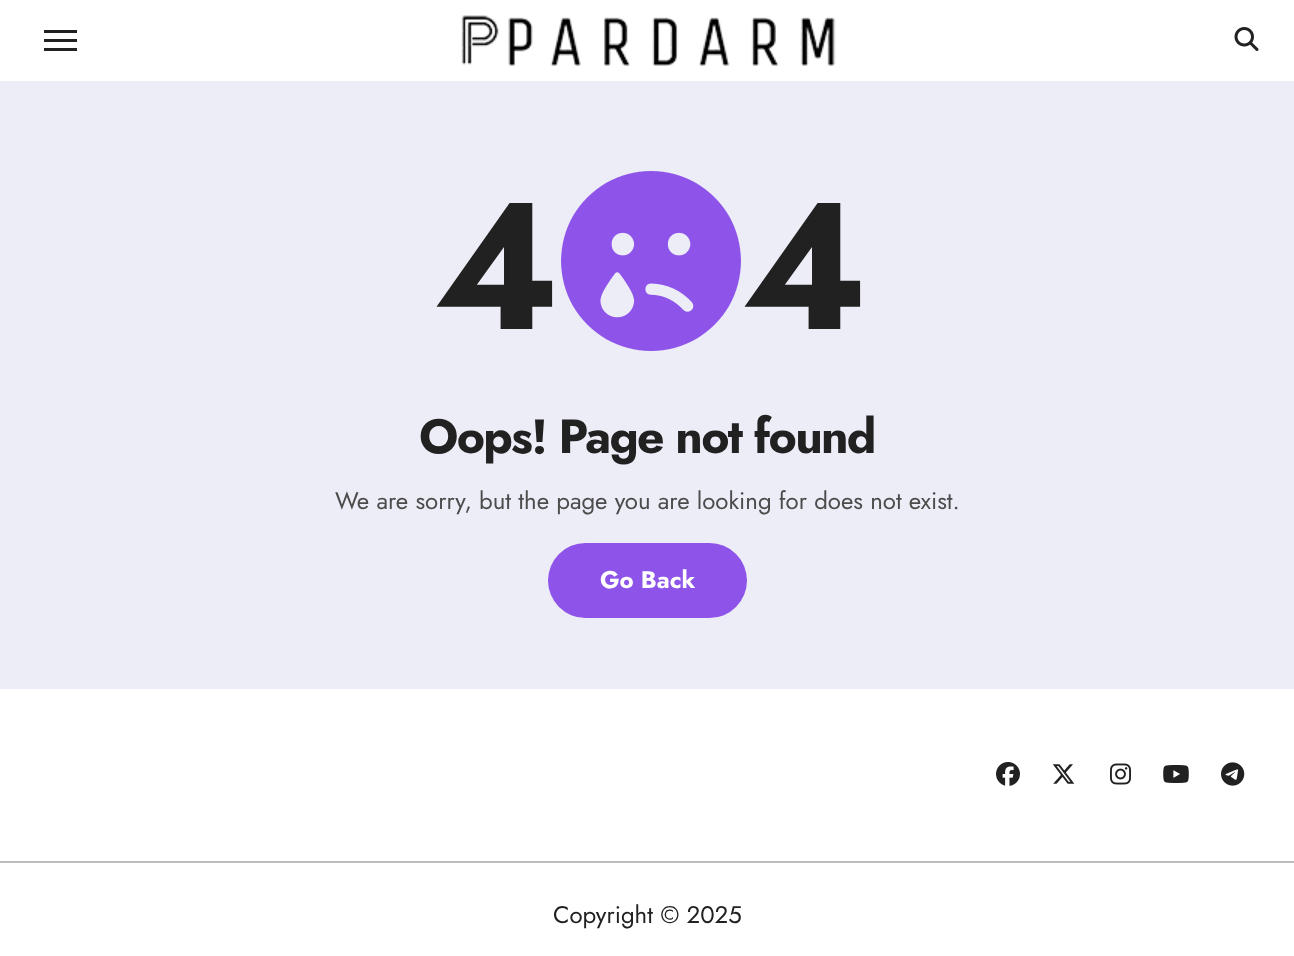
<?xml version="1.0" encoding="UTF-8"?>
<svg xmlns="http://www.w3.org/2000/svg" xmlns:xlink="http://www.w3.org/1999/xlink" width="1294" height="956">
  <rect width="100%" height="100%" fill="#ededf7" />
  <rect width="1294" height="81" fill="#ffffff" />
  <rect x="44" y="30" width="33" height="3" fill="#212121" />
  <rect x="44" y="39" width="33" height="3" fill="#212121" />
  <rect x="44" y="48" width="33" height="3" fill="#212121" />
  <image x="461" y="15" width="375" height="51" xlink:href="image1.png" />
  <image x="1234" y="27" width="25" height="24" xlink:href="image2.png" />
  <image x="561" y="171" width="180" height="180" xlink:href="image3.png" />
  <rect x="548" y="543" width="199" height="75" rx="37.5" fill="#8e54e9" />
  <rect y="689" width="1294" height="267" fill="#ffffff" />
  <image x="996" y="762" width="24" height="24" xlink:href="image4.png" />
  <image x="1052" y="764" width="23" height="20" xlink:href="image5.png" />
  <image x="1110" y="763" width="21" height="22" xlink:href="image6.png" />
  <image x="1163" y="765" width="26" height="18" xlink:href="image7.png" />
  <image x="1221" y="762" width="24" height="24" xlink:href="image8.png" />
  <rect y="861" width="1294" height="2" fill="#bdbdbd" />
  <text x="434" y="329" style="font-family: Jost; font-size: 180px; font-weight: bold; letter-spacing: -6px; fill: #212121">4</text>
  <text x="742" y="329" style="font-family: Jost; font-size: 180px; font-weight: bold; letter-spacing: -6px; fill: #212121">4</text>
  <text x="419" y="453" style="font-family: Jost; font-size: 48px; font-weight: bold; letter-spacing: -1.75px; fill: #212121">Oops! Page not found</text>
  <text x="335" y="509" style="font-family: Jost; font-size: 24px; fill: #4c4c4c">We are sorry, but the page you are looking for does not exist.</text>
  <text x="600" y="588" style="font-family: Jost; font-size: 24px; font-weight: bold; fill: #ffffff">Go Back</text>
  <text x="553" y="923" style="font-family: Jost; font-size: 24px; fill: #212121">Copyright © 2025</text>
</svg>
